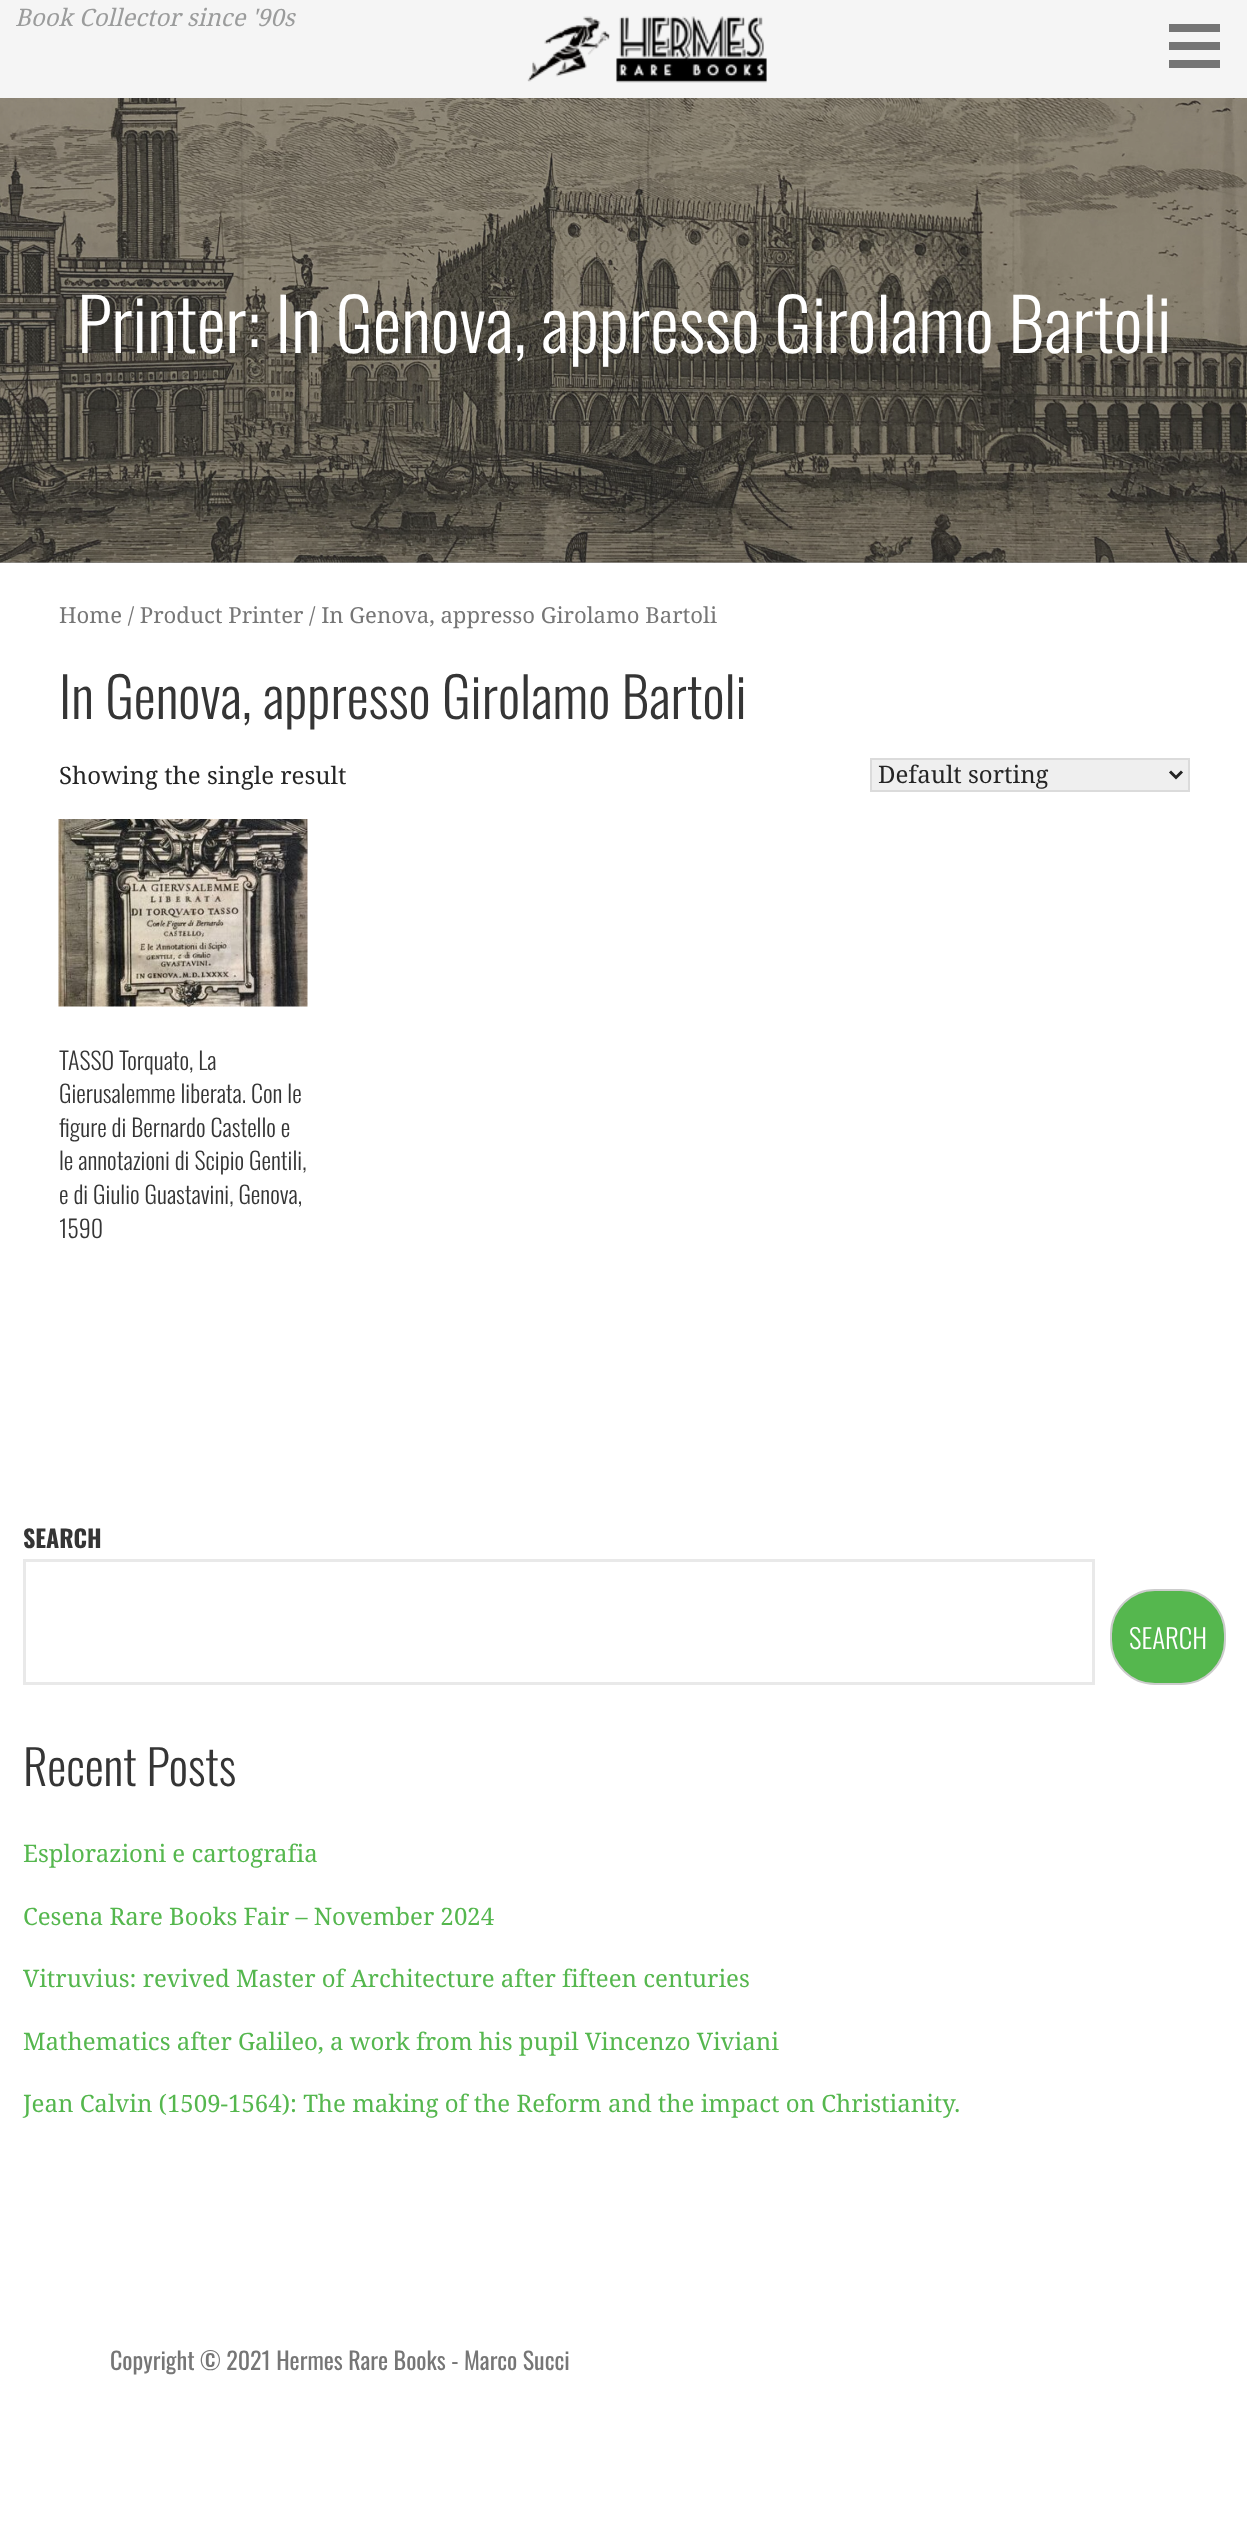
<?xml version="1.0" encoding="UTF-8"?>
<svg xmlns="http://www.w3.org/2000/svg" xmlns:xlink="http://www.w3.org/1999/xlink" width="1247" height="2536">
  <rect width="100%" height="100%" fill="#ffffff" />
  <rect y="562" width="1247" height="1" fill="#a0a1a1" />
  <image x="0" y="98" width="1247" height="465" xlink:href="image1.png" />
  <rect width="1247" height="98" fill="#f5f5f5" />
  <image x="527" y="16" width="240" height="67" xlink:href="image2.png" />
  <rect x="1169" y="24" width="51" height="8" fill="#757575" />
  <rect x="1169" y="42" width="51" height="8" fill="#757575" />
  <rect x="1169" y="60" width="51" height="8" fill="#757575" />
  <rect x="871" y="759" width="318" height="32" fill="#efefef" stroke="#dbdbdb" stroke-width="2" />
  <path d="M 1170 771.5 l 6 6 l 6 -6" fill="none" stroke="#252525" stroke-width="3" />
  <image x="58" y="819" width="250" height="188" xlink:href="image3.png" />
  <rect x="24.5" y="1560.5" width="1069" height="123" fill="none" stroke="#e9e9e9" stroke-width="3" />
  <rect x="1111" y="1590" width="114" height="94" rx="44" fill="#55b74e" stroke="#cccccc" stroke-width="2" />
  <text x="15" y="26" style="font-family: Droid Serif; font-size: 24px; font-style: italic; fill: #9b9c9c">Book Collector since '90s</text>
  <text x="77" y="353" style="font-family: Oswald; font-size: 72px; font-weight: 300; fill: #ffffff">Printer: In Genova, appresso Girolamo Bartoli</text>
  <text x="59" y="623" style="font-family: Droid Serif; font-size: 22.1px; fill: #767676">Home / Product Printer / In Genova, appresso Girolamo Bartoli</text>
  <text x="59" y="719" style="font-family: Oswald; font-size: 55.25px; font-weight: 300; fill: #353535">In Genova, appresso Girolamo Bartoli</text>
  <text x="59" y="784" style="font-family: Droid Serif; font-size: 24px; fill: #252525">Showing the single result</text>
  <text x="878" y="783" style="font-family: Droid Serif; font-size: 24px; fill: #252525">Default sorting</text>
  <text x="59" y="1070" style="font-family: Oswald; font-size: 24px; font-weight: 300; fill: #353535">TASSO Torquato, La</text>
  <text x="59" y="1103" style="font-family: Oswald; font-size: 24px; font-weight: 300; fill: #353535">Gierusalemme liberata. Con le</text>
  <text x="59" y="1137" style="font-family: Oswald; font-size: 24px; font-weight: 300; fill: #353535">figure di Bernardo Castello e</text>
  <text x="59" y="1170" style="font-family: Oswald; font-size: 24px; font-weight: 300; fill: #353535">le annotazioni di Scipio Gentili,</text>
  <text x="59" y="1204" style="font-family: Oswald; font-size: 24px; font-weight: 300; fill: #353535">e di Giulio Guastavini, Genova,</text>
  <text x="59" y="1238" style="font-family: Oswald; font-size: 24px; font-weight: 300; fill: #353535">1590</text>
  <text x="23" y="1548" style="font-family: Oswald; font-size: 24px; font-weight: bold; fill: #353535">SEARCH</text>
  <text x="1129" y="1649" style="font-family: Oswald; font-size: 27px; font-weight: 300; fill: #ffffff">SEARCH</text>
  <text x="23" y="1786" style="font-family: Oswald; font-size: 48px; font-weight: 300; fill: #353535">Recent Posts</text>
  <text x="23" y="1862" style="font-family: Droid Serif; font-size: 24px; fill: #55b74e">Esplorazioni e cartografia</text>
  <text x="23" y="1925" style="font-family: Droid Serif; font-size: 24px; fill: #55b74e">Cesena Rare Books Fair – November 2024</text>
  <text x="23" y="1987" style="font-family: Droid Serif; font-size: 24px; fill: #55b74e">Vitruvius: revived Master of Architecture after fifteen centuries</text>
  <text x="23" y="2050" style="font-family: Droid Serif; font-size: 24px; fill: #55b74e">Mathematics after Galileo, a work from his pupil Vincenzo Viviani</text>
  <text x="23" y="2112" style="font-family: Droid Serif; font-size: 24px; fill: #55b74e">Jean Calvin (1509-1564): The making of the Reform and the impact on Christianity.</text>
  <text x="110" y="2370" style="font-family: Oswald; font-size: 24px; fill: #767676">Copyright © 2021 Hermes Rare Books - Marco Succi</text>
</svg>
